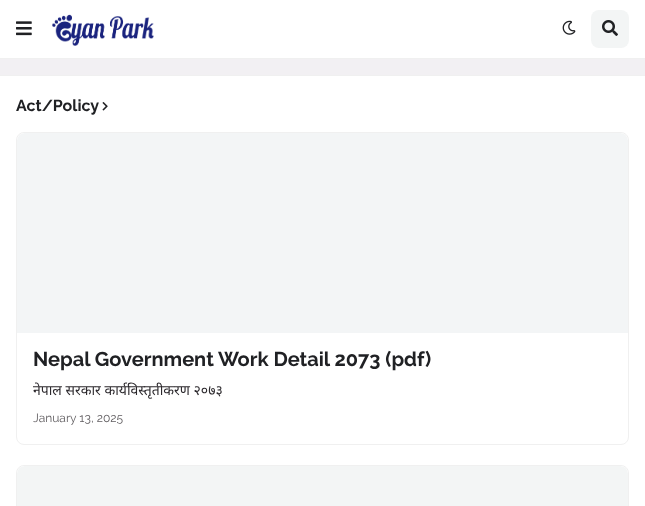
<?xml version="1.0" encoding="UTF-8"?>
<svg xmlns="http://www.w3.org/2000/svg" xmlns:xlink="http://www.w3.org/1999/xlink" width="645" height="506">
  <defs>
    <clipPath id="clip1"><rect x="17" y="133" width="611" height="311" rx="7" /></clipPath>
    <clipPath id="clip2"><rect x="17" y="466" width="611" height="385" rx="7" /></clipPath>
  </defs>
  <rect width="100%" height="100%" fill="#f2f0f3" />
  <rect width="645" height="58" fill="#ffffff" />
  <rect y="58" width="645" height="1" fill="#f0f0f0" />
  <image x="16" y="21" width="16" height="15" xlink:href="image1.png" />
  <image x="52" y="14" width="102" height="32" xlink:href="image2.png" />
  <image x="562" y="20" width="14" height="15" xlink:href="image3.png" />
  <rect x="591" y="10" width="38" height="38" rx="8" fill="#f3f5f5" />
  <image x="602" y="20" width="16" height="16" xlink:href="image4.png" />
  <rect y="76" width="645" height="430" fill="#ffffff" />
  <rect y="75" width="645" height="1" fill="#f0f0f0" />
  <image x="102" y="102" width="6" height="9" xlink:href="image5.png" />
  <rect x="16.5" y="132.5" width="612" height="312" rx="7.5" fill="none" stroke="#f0f0f0" />
  <g clip-path="url(#clip1)">
    <path d="M 25 133 h 595 c 4.5 0 8 3.5 8 8 v 192 h -611 v -192 c 0 -4.5 3.5 -8 8 -8 z" fill="#f3f5f6" />
  </g>
  <rect x="16.5" y="465.5" width="612" height="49" rx="7.5" fill="none" stroke="#f0f0f0" />
  <g clip-path="url(#clip2)">
    <path d="M 25 466 h 595 c 4.5 0 8 3.5 8 8 v 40 h -611 v -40 c 0 -4.5 3.5 -8 8 -8 z" fill="#f3f5f5" />
  </g>
  <text x="16" y="111" style="font-family: Raleway; font-size: 16px; font-weight: bold; fill: #202124">Act/Policy</text>
  <text x="33" y="366" style="font-family: Raleway; font-size: 20px; font-weight: bold; fill: #202124">Nepal Government Work Detail 2073 (pdf)</text>
  <text x="33" y="395" style="font-family: Noto Sans; font-size: 14px; fill: #2c292d">नेपाल सरकार कार्यविस्तृतीकरण २०७३</text>
  <text x="33" y="422" style="font-family: Raleway; font-size: 12px; fill: #605d60">January 13, 2025</text>
</svg>
